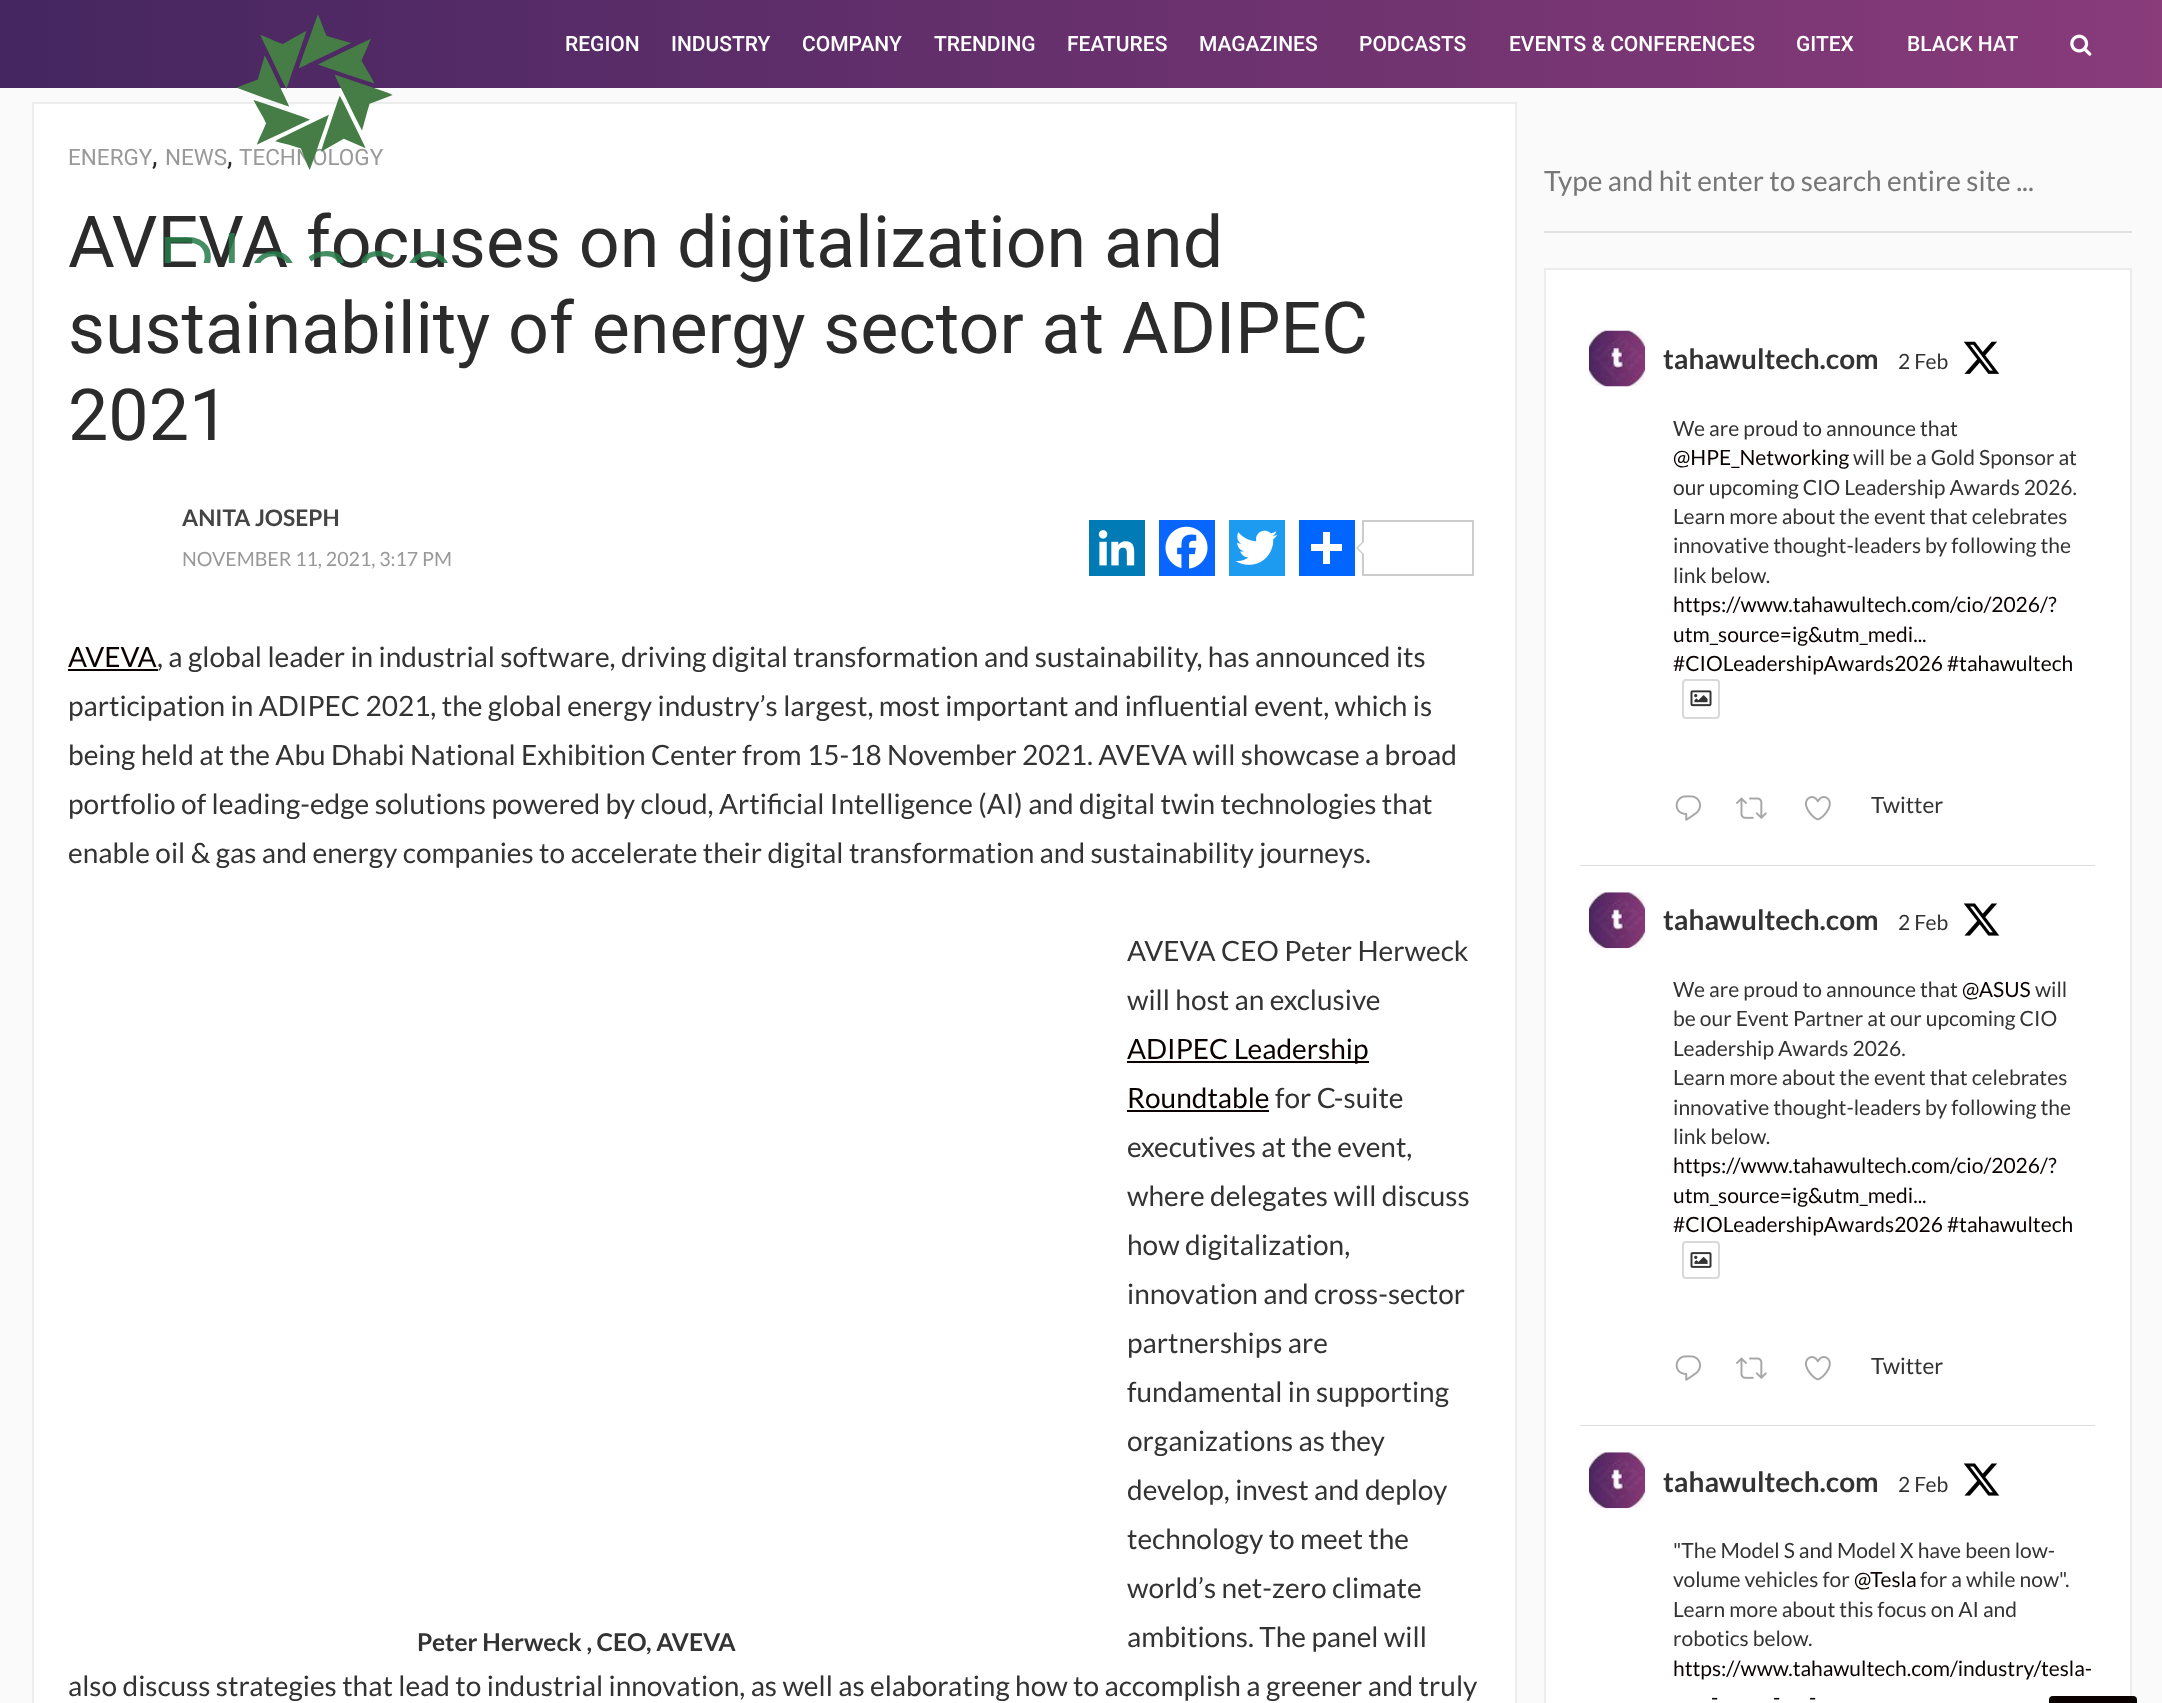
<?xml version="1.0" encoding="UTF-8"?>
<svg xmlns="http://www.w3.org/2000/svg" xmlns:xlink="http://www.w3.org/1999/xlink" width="2162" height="1703">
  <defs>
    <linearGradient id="g1" gradientUnits="userSpaceOnUse" x1="0" y1="44" x2="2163" y2="44"><stop offset="0" stop-color="#452660" /><stop offset="1" stop-color="#893b7a" /></linearGradient>
  </defs>
  <rect width="100%" height="100%" fill="#fafafa" />
  <rect width="2162" height="88" fill="url(#g1)" />
  <image x="2070" y="34" width="22" height="22" xlink:href="image2.png" />
  <rect x="33" y="103" width="1483" height="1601" fill="#ffffff" stroke="#ececec" stroke-width="2" />
  <rect x="1089" y="520" width="56" height="56" fill="#007bb5" />
  <image x="1098" y="530" width="37" height="36" xlink:href="image3.png" />
  <rect x="1159" y="520" width="56" height="56" fill="#0866ff" />
  <image x="1165" y="526" width="43" height="43" xlink:href="image4.png" />
  <rect x="1229" y="520" width="56" height="56" fill="#1d9bf0" />
  <image x="1235" y="530" width="43" height="35" xlink:href="image5.png" />
  <rect x="1299" y="520" width="56" height="56" fill="#0166ff" />
  <rect x="1323" y="532" width="7" height="32" fill="#ffffff" />
  <rect x="1311" y="544" width="31" height="7" fill="#ffffff" />
  <rect x="1363" y="521" width="110" height="54" fill="none" stroke="#cccccc" stroke-width="2" />
  <path d="M 1363 541 v 14 l -7 -7 z" fill="#cccccc" />
  <path d="M 1365 541 v 14 l -7 -7 z" fill="#ffffff" />
  <rect x="68" y="669" width="90" height="2" fill="#0a0000" />
  <rect x="1127" y="1061" width="242" height="2" fill="#0a0000" />
  <rect x="1127" y="1110" width="142" height="2" fill="#0a0000" />
  <rect x="1544" y="231" width="588" height="2" fill="#e2e2e2" />
  <rect x="1545" y="269" width="586" height="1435" fill="#ffffff" stroke="#ececec" stroke-width="2" />
  <rect x="1580" y="865" width="515" height="1" fill="#dddddd" />
  <image x="1589" y="330" width="56" height="57" xlink:href="image6.png" />
  <image x="1963" y="341" width="37" height="33" xlink:href="image7.png" />
  <rect x="1683" y="680" width="36" height="38" rx="3" fill="none" stroke="#d9d9d9" stroke-width="2" />
  <image x="1690" y="690" width="22" height="17" xlink:href="image8.png" />
  <image x="1675" y="795" width="26" height="26" xlink:href="image9.png" />
  <image x="1736" y="797" width="31" height="22" xlink:href="image10.png" />
  <image x="1805" y="796" width="26" height="25" xlink:href="image11.png" />
  <rect x="1580" y="1425" width="515" height="1" fill="#dddddd" />
  <image x="1589" y="892" width="56" height="57" xlink:href="image12.png" />
  <image x="1963" y="903" width="37" height="33" xlink:href="image13.png" />
  <rect x="1683" y="1242" width="36" height="36" rx="3" fill="none" stroke="#d9d9d9" stroke-width="2" />
  <image x="1690" y="1252" width="22" height="16" xlink:href="image14.png" />
  <image x="1675" y="1355" width="26" height="26" xlink:href="image9.png" />
  <image x="1736" y="1357" width="31" height="22" xlink:href="image10.png" />
  <image x="1805" y="1356" width="26" height="25" xlink:href="image11.png" />
  <image x="1589" y="1452" width="56" height="57" xlink:href="image15.png" />
  <image x="1963" y="1463" width="37" height="33" xlink:href="image13.png" />
  <rect x="2049" y="1696" width="88" height="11" rx="4" fill="#0a0000" />
  <text x="565" y="51" style="font-family: Roboto; font-size: 21px; font-weight: 500; fill: #ffffff">REGION</text>
  <text x="671" y="51" style="font-family: Roboto; font-size: 21px; font-weight: 500; fill: #ffffff">INDUSTRY</text>
  <text x="802" y="51" style="font-family: Roboto; font-size: 21px; font-weight: 500; fill: #ffffff">COMPANY</text>
  <text x="934" y="51" style="font-family: Roboto; font-size: 21px; font-weight: 500; fill: #ffffff">TRENDING</text>
  <text x="1067" y="51" style="font-family: Roboto; font-size: 21px; font-weight: 500; fill: #ffffff">FEATURES</text>
  <text x="1199" y="51" style="font-family: Roboto; font-size: 21px; font-weight: 500; fill: #ffffff">MAGAZINES</text>
  <text x="1359" y="51" style="font-family: Roboto; font-size: 21px; font-weight: 500; fill: #ffffff">PODCASTS</text>
  <text x="1509" y="51" style="font-family: Roboto; font-size: 21px; font-weight: 500; fill: #ffffff">EVENTS &amp; CONFERENCES</text>
  <text x="1796" y="51" style="font-family: Roboto; font-size: 21px; font-weight: 500; fill: #ffffff">GITEX</text>
  <text x="1907" y="51" style="font-family: Roboto; font-size: 21px; font-weight: 500; fill: #ffffff">BLACK HAT</text>
  <text x="68" y="165" style="font-family: Roboto; font-size: 22.5px; fill: #999999">ENERGY</text>
  <text x="152" y="165" style="font-family: Roboto; font-size: 28px; fill: #2b2b2b">,</text>
  <text x="165" y="165" style="font-family: Roboto; font-size: 22.5px; fill: #999999">NEWS</text>
  <text x="227" y="165" style="font-family: Roboto; font-size: 28px; fill: #2b2b2b">,</text>
  <text x="239" y="165" style="font-family: Roboto; font-size: 22.5px; fill: #999999">TECHNOLOGY</text>
  <text x="68" y="267" style="font-family: Roboto; font-size: 71.75px; fill: #2b2b2b">AVEVA focuses on digitalization and</text>
  <image x="164" y="14" width="284" height="249" xlink:href="image1.png" />
  <text x="68" y="353" style="font-family: Roboto; font-size: 71.75px; fill: #2b2b2b">sustainability of energy sector at ADIPEC</text>
  <text x="68" y="440" style="font-family: Roboto; font-size: 71.75px; fill: #2b2b2b">2021</text>
  <text x="182" y="526" style="font-family: Lato; font-size: 22.75px; font-weight: bold; fill: #444444">ANITA JOSEPH</text>
  <text x="182" y="566" style="font-family: Lato; font-size: 19.6px; fill: #999999">NOVEMBER 11, 2021, 3:17 PM</text>
  <text x="68" y="667" style="font-family: Lato; font-size: 28px; fill: #0a0000">AVEVA</text>
  <text x="157" y="667" style="font-family: Lato; font-size: 28px; fill: #333333">, a global leader in industrial software, driving digital transformation and sustainability, has announced its</text>
  <text x="68" y="716" style="font-family: Lato; font-size: 28px; fill: #333333">participation in ADIPEC 2021, the global energy industry’s largest, most important and influential event, which is</text>
  <text x="68" y="765" style="font-family: Lato; font-size: 28px; fill: #333333">being held at the Abu Dhabi National Exhibition Center from 15-18 November 2021. AVEVA will showcase a broad</text>
  <text x="68" y="814" style="font-family: Lato; font-size: 28px; fill: #333333">portfolio of leading-edge solutions powered by cloud, Artificial Intelligence (AI) and digital twin technologies that</text>
  <text x="68" y="863" style="font-family: Lato; font-size: 28px; fill: #333333">enable oil &amp; gas and energy companies to accelerate their digital transformation and sustainability journeys.</text>
  <text x="1127" y="961" style="font-family: Lato; font-size: 28px; fill: #333333">AVEVA CEO Peter Herweck</text>
  <text x="1127" y="1010" style="font-family: Lato; font-size: 28px; fill: #333333">will host an exclusive</text>
  <text x="1127" y="1059" style="font-family: Lato; font-size: 28px; fill: #0a0000">ADIPEC Leadership</text>
  <text x="1127" y="1108" style="font-family: Lato; font-size: 28px; fill: #0a0000">Roundtable</text>
  <text x="1275" y="1108" style="font-family: Lato; font-size: 28px; fill: #333333">for C-suite</text>
  <text x="1127" y="1157" style="font-family: Lato; font-size: 28px; fill: #333333">executives at the event,</text>
  <text x="1127" y="1206" style="font-family: Lato; font-size: 28px; fill: #333333">where delegates will discuss</text>
  <text x="1127" y="1255" style="font-family: Lato; font-size: 28px; fill: #333333">how digitalization,</text>
  <text x="1127" y="1304" style="font-family: Lato; font-size: 28px; fill: #333333">innovation and cross-sector</text>
  <text x="1127" y="1353" style="font-family: Lato; font-size: 28px; fill: #333333">partnerships are</text>
  <text x="1127" y="1402" style="font-family: Lato; font-size: 28px; fill: #333333">fundamental in supporting</text>
  <text x="1127" y="1451" style="font-family: Lato; font-size: 28px; fill: #333333">organizations as they</text>
  <text x="1127" y="1500" style="font-family: Lato; font-size: 28px; fill: #333333">develop, invest and deploy</text>
  <text x="1127" y="1549" style="font-family: Lato; font-size: 28px; fill: #333333">technology to meet the</text>
  <text x="1127" y="1598" style="font-family: Lato; font-size: 28px; fill: #333333">world’s net-zero climate</text>
  <text x="1127" y="1647" style="font-family: Lato; font-size: 28px; fill: #333333">ambitions. The panel will</text>
  <text x="68" y="1696" style="font-family: Lato; font-size: 28px; fill: #333333">also discuss strategies that lead to industrial innovation, as well as elaborating how to accomplish a greener and truly</text>
  <text x="417" y="1651" style="font-family: Lato; font-size: 24.5px; font-weight: bold; fill: #333333">Peter Herweck , CEO, AVEVA</text>
  <text x="1544" y="191" style="font-family: Lato; font-size: 28px; fill: #777777">Type and hit enter to search entire site ...</text>
  <text x="1663" y="369" style="font-family: Lato; font-size: 28px; font-weight: bold; fill: #333333">tahawultech.com</text>
  <text x="1898" y="369" style="font-family: Lato; font-size: 21px; fill: #333333">2 Feb</text>
  <text x="1673" y="436" style="font-family: Lato; font-size: 21px; fill: #333333">We are proud to announce that</text>
  <text x="1673" y="465" style="font-family: Lato; font-size: 21px; fill: #0a0000">@HPE_Networking</text>
  <text x="1853" y="465" style="font-family: Lato; font-size: 21px; fill: #333333">will be a Gold Sponsor at</text>
  <text x="1673" y="495" style="font-family: Lato; font-size: 21px; fill: #333333">our upcoming CIO Leadership Awards 2026.</text>
  <text x="1673" y="524" style="font-family: Lato; font-size: 21px; fill: #333333">Learn more about the event that celebrates</text>
  <text x="1673" y="553" style="font-family: Lato; font-size: 21px; fill: #333333">innovative thought-leaders by following the</text>
  <text x="1673" y="583" style="font-family: Lato; font-size: 21px; fill: #333333">link below.</text>
  <text x="1673" y="612" style="font-family: Lato; font-size: 21px; fill: #0a0000">https://www.tahawultech.com/cio/2026/?</text>
  <text x="1673" y="642" style="font-family: Lato; font-size: 21px; fill: #0a0000">utm_source=ig&amp;utm_medi...</text>
  <text x="1673" y="671" style="font-family: Lato; font-size: 21px; fill: #0a0000">#CIOLeadershipAwards2026 #tahawultech</text>
  <text x="1871" y="813" style="font-family: Lato; font-size: 22.5px; fill: #333333">Twitter</text>
  <text x="1663" y="930" style="font-family: Lato; font-size: 28px; font-weight: bold; fill: #333333">tahawultech.com</text>
  <text x="1898" y="930" style="font-family: Lato; font-size: 21px; fill: #333333">2 Feb</text>
  <text x="1673" y="997" style="font-family: Lato; font-size: 21px; fill: #333333">We are proud to announce that</text>
  <text x="1962" y="997" style="font-family: Lato; font-size: 21px; fill: #0a0000">@ASUS</text>
  <text x="2035" y="997" style="font-family: Lato; font-size: 21px; fill: #333333">will</text>
  <text x="1673" y="1026" style="font-family: Lato; font-size: 21px; fill: #333333">be our Event Partner at our upcoming CIO</text>
  <text x="1673" y="1056" style="font-family: Lato; font-size: 21px; fill: #333333">Leadership Awards 2026.</text>
  <text x="1673" y="1085" style="font-family: Lato; font-size: 21px; fill: #333333">Learn more about the event that celebrates</text>
  <text x="1673" y="1115" style="font-family: Lato; font-size: 21px; fill: #333333">innovative thought-leaders by following the</text>
  <text x="1673" y="1144" style="font-family: Lato; font-size: 21px; fill: #333333">link below.</text>
  <text x="1673" y="1173" style="font-family: Lato; font-size: 21px; fill: #0a0000">https://www.tahawultech.com/cio/2026/?</text>
  <text x="1673" y="1203" style="font-family: Lato; font-size: 21px; fill: #0a0000">utm_source=ig&amp;utm_medi...</text>
  <text x="1673" y="1232" style="font-family: Lato; font-size: 21px; fill: #0a0000">#CIOLeadershipAwards2026 #tahawultech</text>
  <text x="1871" y="1374" style="font-family: Lato; font-size: 22.5px; fill: #333333">Twitter</text>
  <text x="1663" y="1492" style="font-family: Lato; font-size: 28px; font-weight: bold; fill: #333333">tahawultech.com</text>
  <text x="1898" y="1492" style="font-family: Lato; font-size: 21px; fill: #333333">2 Feb</text>
  <text x="1673" y="1558" style="font-family: Lato; font-size: 21px; fill: #333333">"The Model S and Model X have been low-</text>
  <text x="1673" y="1587" style="font-family: Lato; font-size: 21px; fill: #333333">volume vehicles for</text>
  <text x="1854" y="1587" style="font-family: Lato; font-size: 21px; fill: #0a0000">@Tesla</text>
  <text x="1920" y="1587" style="font-family: Lato; font-size: 21px; fill: #333333">for a while now".</text>
  <text x="1673" y="1617" style="font-family: Lato; font-size: 21px; fill: #333333">Learn more about this focus on AI and</text>
  <text x="1673" y="1646" style="font-family: Lato; font-size: 21px; fill: #333333">robotics below.</text>
  <text x="1673" y="1676" style="font-family: Lato; font-size: 21px; fill: #0a0000">https://www.tahawultech.com/industry/tesla-</text>
  <text x="1711" y="1705" style="font-family: Lato; font-size: 21px; fill: #0a0000">-</text>
  <text x="1773" y="1705" style="font-family: Lato; font-size: 21px; fill: #0a0000">-</text>
  <text x="1809" y="1705" style="font-family: Lato; font-size: 21px; fill: #0a0000">-</text>
</svg>
